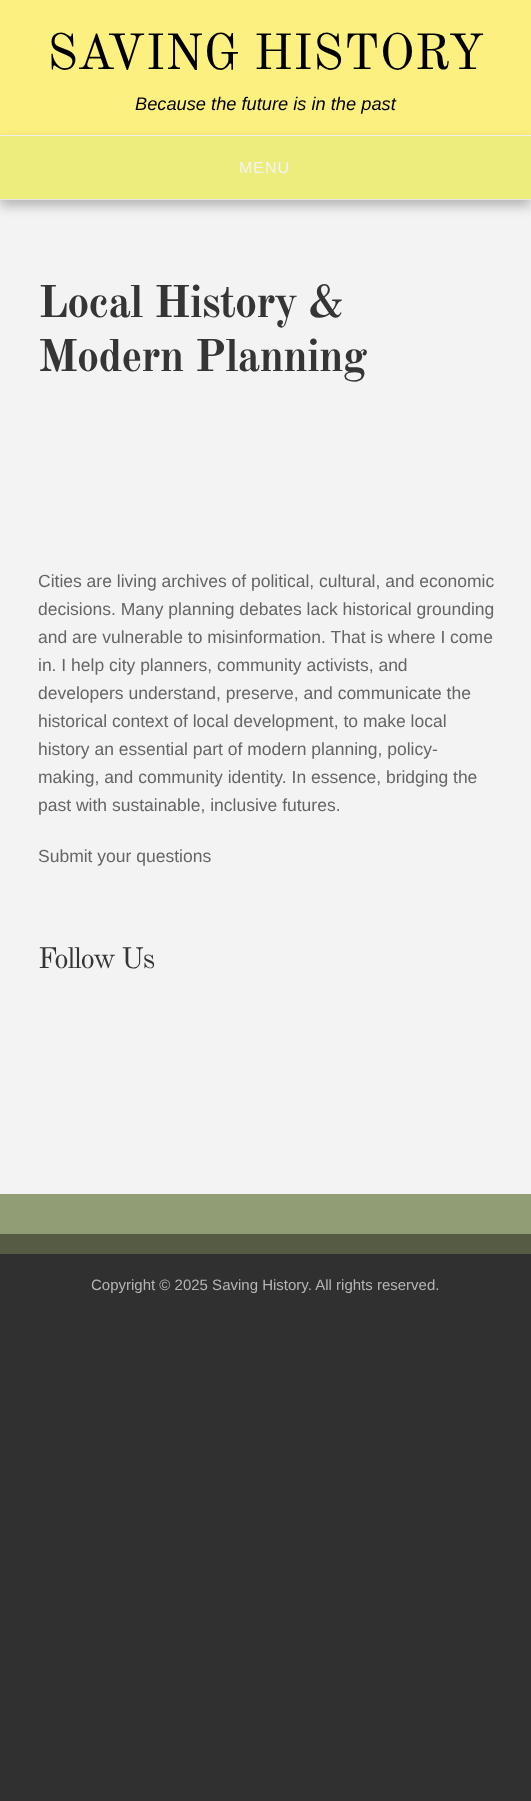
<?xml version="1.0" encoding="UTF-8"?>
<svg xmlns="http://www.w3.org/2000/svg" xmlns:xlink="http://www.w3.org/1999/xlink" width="531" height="1801">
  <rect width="100%" height="100%" fill="#303030" />
  <rect y="200" width="531" height="994" fill="#f3f3f3" />
  <rect width="531" height="135" fill="#fcf081" />
  <rect y="141" width="531" height="65" fill="#000000" fill-opacity="0.25" filter="blur(6px)" />
  <rect y="135" width="531" height="1" fill="#efefef" />
  <rect y="199" width="531" height="1" fill="#e5e5e5" />
  <rect y="136" width="531" height="63" fill="#eded7d" />
  <rect y="1194" width="531" height="40" fill="#919d74" />
  <rect y="1234" width="531" height="20" fill="#555c43" />
  <text x="47" y="69" style="font-family: Old Standard TT; font-size: 50px; fill: #000000">SAVING HISTORY</text>
  <text x="135" y="110" style="font-family: Liberation Sans; font-size: 18.25px; font-style: italic; fill: #000000">Because the future is in the past</text>
  <text x="239" y="173" style="font-family: Liberation Sans; font-size: 16px; letter-spacing: 1px; fill: #f3f3f3">MENU</text>
  <text x="38" y="317" style="font-family: Old Standard TT; font-size: 45px; font-weight: bold; letter-spacing: -1.25px; fill: #353535">Local History &amp;</text>
  <text x="38" y="371" style="font-family: Old Standard TT; font-size: 45px; font-weight: bold; letter-spacing: -1.25px; fill: #353535">Modern Planning</text>
  <text x="38" y="587" style="font-family: Liberation Sans; font-size: 17.5px; fill: #656565">Cities are living archives of political, cultural, and economic</text>
  <text x="38" y="615" style="font-family: Liberation Sans; font-size: 17.5px; fill: #656565">decisions. Many planning debates lack historical grounding</text>
  <text x="38" y="643" style="font-family: Liberation Sans; font-size: 17.5px; fill: #656565">and are vulnerable to misinformation. That is where I come</text>
  <text x="38" y="671" style="font-family: Liberation Sans; font-size: 17.5px; fill: #656565">in. I help city planners, community activists, and</text>
  <text x="38" y="699" style="font-family: Liberation Sans; font-size: 17.5px; fill: #656565">developers understand, preserve, and communicate the</text>
  <text x="38" y="727" style="font-family: Liberation Sans; font-size: 17.5px; fill: #656565">historical context of local development, to make local</text>
  <text x="38" y="755" style="font-family: Liberation Sans; font-size: 17.5px; fill: #656565">history an essential part of modern planning, policy-</text>
  <text x="38" y="783" style="font-family: Liberation Sans; font-size: 17.5px; fill: #656565">making, and community identity. In essence, bridging the</text>
  <text x="38" y="811" style="font-family: Liberation Sans; font-size: 17.5px; fill: #656565">past with sustainable, inclusive futures.</text>
  <text x="38" y="862" style="font-family: Liberation Sans; font-size: 17.5px; fill: #656565">Submit your questions</text>
  <text x="38" y="968" style="font-family: Old Standard TT; font-size: 29px; letter-spacing: -1.25px; fill: #353535">Follow Us</text>
  <text x="91" y="1290" style="font-family: Liberation Sans; font-size: 15px; fill: #b5b5b5">Copyright © 2025 Saving History. All rights reserved.</text>
</svg>
